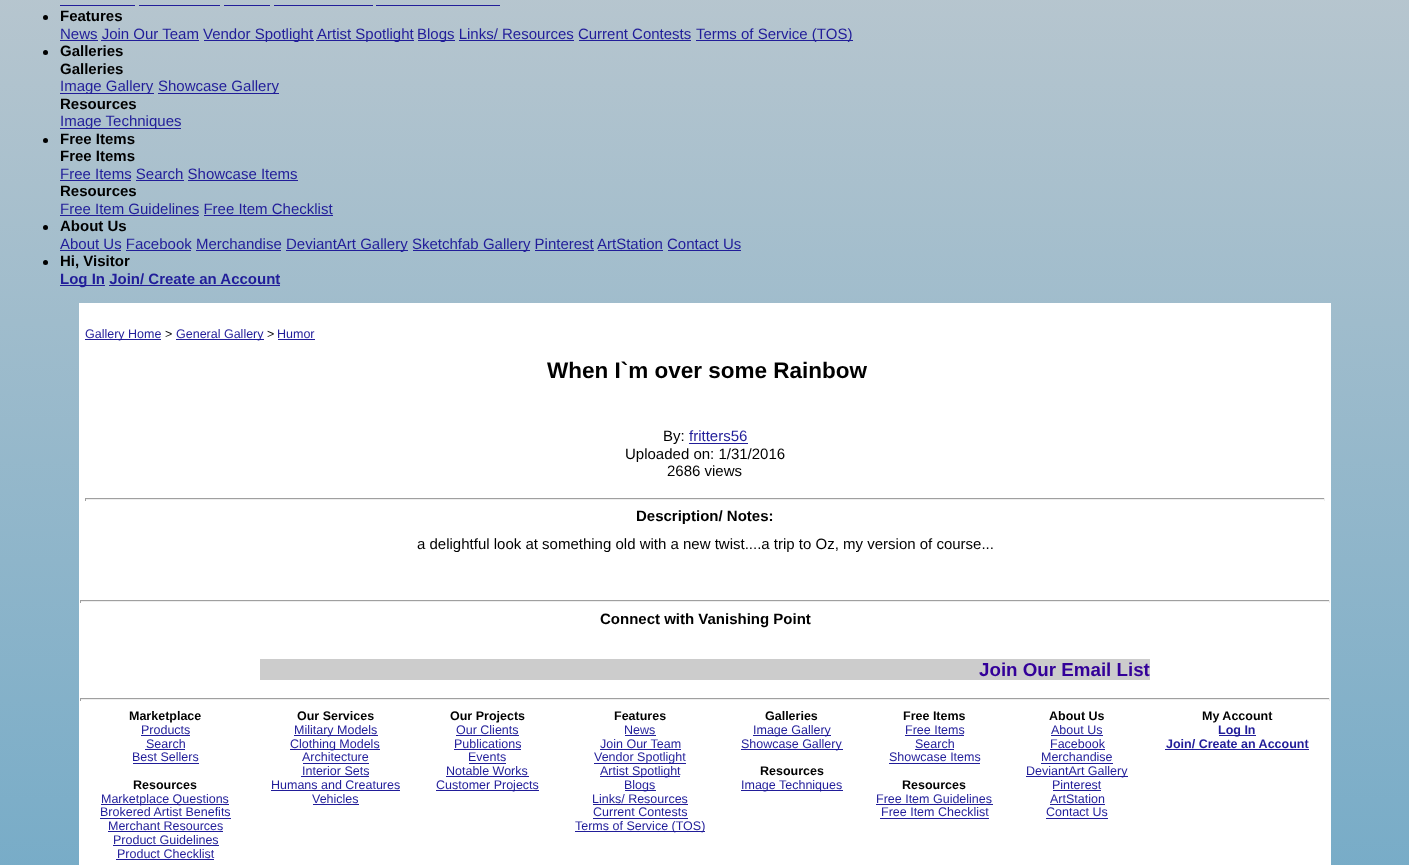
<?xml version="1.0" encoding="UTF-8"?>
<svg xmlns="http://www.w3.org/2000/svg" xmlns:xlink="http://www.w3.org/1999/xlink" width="1409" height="865">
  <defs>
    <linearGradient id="g1" gradientUnits="userSpaceOnUse" x1="705" y1="-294" x2="705" y2="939"><stop offset="0" stop-color="#cbced1" /><stop offset="1" stop-color="#73aac7" /></linearGradient>
  </defs>
  <rect width="100%" height="100%" fill="#ffffff" />
  <rect width="1409" height="865" fill="url(#g1)" />
  <rect x="60" y="5" width="75" height="1" fill="#211d99" />
  <rect x="139" y="5" width="81" height="1" fill="#211d99" />
  <rect x="224" y="5" width="46" height="1" fill="#211d99" />
  <rect x="274" y="5" width="99" height="1" fill="#211d99" />
  <rect x="376" y="5" width="124" height="1" fill="#211d99" />
  <circle cx="45.5" cy="17.5" r="2.5" fill="#000000" />
  <rect x="60" y="40" width="38" height="1" fill="#211d99" />
  <rect x="204" y="40" width="110" height="1" fill="#211d99" />
  <rect x="316" y="40" width="98" height="1" fill="#211d99" />
  <rect x="418" y="40" width="37" height="1" fill="#211d99" />
  <rect x="696" y="40" width="157" height="1" fill="#211d99" />
  <rect x="101" y="40" width="98" height="1" fill="#211d99" />
  <rect x="459" y="40" width="115" height="1" fill="#211d99" />
  <rect x="579" y="40" width="112" height="1" fill="#211d99" />
  <circle cx="45.5" cy="52.5" r="2.5" fill="#000000" />
  <rect x="60" y="93" width="94" height="1" fill="#211d99" />
  <rect x="158" y="93" width="121" height="1" fill="#211d99" />
  <rect x="60" y="128" width="121" height="1" fill="#211d99" />
  <circle cx="45.5" cy="140.5" r="2.5" fill="#000000" />
  <rect x="60" y="180" width="71" height="1" fill="#211d99" />
  <rect x="136" y="180" width="48" height="1" fill="#211d99" />
  <rect x="188" y="180" width="110" height="1" fill="#211d99" />
  <rect x="60" y="215" width="139" height="1" fill="#211d99" />
  <rect x="204" y="215" width="129" height="1" fill="#211d99" />
  <circle cx="45.5" cy="227.5" r="2.5" fill="#000000" />
  <rect x="60" y="250" width="61" height="1" fill="#211d99" />
  <rect x="286" y="250" width="122" height="1" fill="#211d99" />
  <rect x="413" y="250" width="117" height="1" fill="#211d99" />
  <rect x="598" y="250" width="65" height="1" fill="#211d99" />
  <rect x="126" y="250" width="65" height="1" fill="#211d99" />
  <rect x="196" y="250" width="85" height="1" fill="#211d99" />
  <rect x="535" y="250" width="59" height="1" fill="#211d99" />
  <rect x="668" y="250" width="73" height="1" fill="#211d99" />
  <circle cx="45.5" cy="262.5" r="2.5" fill="#000000" />
  <rect x="60" y="285" width="45" height="1" fill="#211d99" />
  <rect x="109" y="285" width="171" height="1" fill="#211d99" />
  <rect x="79" y="303" width="1252" height="562" fill="#ffffff" />
  <rect x="85" y="339" width="76" height="1" fill="#211d99" />
  <rect x="176" y="339" width="88" height="1" fill="#211d99" />
  <rect x="278" y="339" width="37" height="1" fill="#211d99" />
  <rect x="689" y="443" width="59" height="1" fill="#211d99" />
  <rect x="85" y="498" width="1240" height="1" fill="#9f9f9f" />
  <rect x="1324" y="498" width="1" height="3" fill="#eeeeee" />
  <rect x="85" y="499" width="1240" height="1" fill="#eeeeee" />
  <rect x="85" y="498" width="1" height="3" fill="#9f9f9f" />
  <rect x="80" y="600" width="1250" height="1" fill="#9f9f9f" />
  <rect x="1329" y="600" width="1" height="3" fill="#eeeeee" />
  <rect x="80" y="601" width="1250" height="1" fill="#eeeeee" />
  <rect x="80" y="600" width="1" height="3" fill="#9f9f9f" />
  <rect x="260" y="659" width="890" height="21" fill="#cccccc" />
  <rect x="80" y="698" width="1250" height="1" fill="#9f9f9f" />
  <rect x="1329" y="698" width="1" height="3" fill="#eeeeee" />
  <rect x="80" y="699" width="1250" height="1" fill="#eeeeee" />
  <rect x="80" y="698" width="1" height="3" fill="#9f9f9f" />
  <rect x="141" y="735" width="49" height="1" fill="#211d99" />
  <rect x="145" y="749" width="40" height="1" fill="#211d99" />
  <rect x="133" y="763" width="66" height="1" fill="#211d99" />
  <rect x="101" y="804" width="128" height="1" fill="#211d99" />
  <rect x="100" y="818" width="131" height="1" fill="#211d99" />
  <rect x="108" y="831" width="115" height="1" fill="#211d99" />
  <rect x="113" y="845" width="106" height="1" fill="#211d99" />
  <rect x="116" y="859" width="98" height="1" fill="#211d99" />
  <rect x="294" y="735" width="84" height="1" fill="#211d99" />
  <rect x="290" y="749" width="90" height="1" fill="#211d99" />
  <rect x="303" y="763" width="66" height="1" fill="#211d99" />
  <rect x="301" y="776" width="68" height="1" fill="#211d99" />
  <rect x="271" y="790" width="129" height="1" fill="#211d99" />
  <rect x="313" y="804" width="46" height="1" fill="#211d99" />
  <rect x="456" y="735" width="63" height="1" fill="#211d99" />
  <rect x="454" y="749" width="67" height="1" fill="#211d99" />
  <rect x="469" y="763" width="37" height="1" fill="#211d99" />
  <rect x="446" y="776" width="83" height="1" fill="#211d99" />
  <rect x="436" y="790" width="103" height="1" fill="#211d99" />
  <rect x="625" y="735" width="31" height="1" fill="#211d99" />
  <rect x="600" y="749" width="81" height="1" fill="#211d99" />
  <rect x="594" y="763" width="92" height="1" fill="#211d99" />
  <rect x="600" y="776" width="80" height="1" fill="#211d99" />
  <rect x="625" y="790" width="31" height="1" fill="#211d99" />
  <rect x="593" y="804" width="95" height="1" fill="#211d99" />
  <rect x="593" y="818" width="95" height="1" fill="#211d99" />
  <rect x="575" y="831" width="130" height="1" fill="#211d99" />
  <rect x="753" y="735" width="78" height="1" fill="#211d99" />
  <rect x="741" y="749" width="102" height="1" fill="#211d99" />
  <rect x="741" y="790" width="102" height="1" fill="#211d99" />
  <rect x="905" y="735" width="59" height="1" fill="#211d99" />
  <rect x="915" y="749" width="39" height="1" fill="#211d99" />
  <rect x="889" y="763" width="91" height="1" fill="#211d99" />
  <rect x="876" y="804" width="117" height="1" fill="#211d99" />
  <rect x="880" y="818" width="109" height="1" fill="#211d99" />
  <rect x="1051" y="735" width="52" height="1" fill="#211d99" />
  <rect x="1050" y="749" width="55" height="1" fill="#211d99" />
  <rect x="1041" y="763" width="72" height="1" fill="#211d99" />
  <rect x="1026" y="776" width="102" height="1" fill="#211d99" />
  <rect x="1053" y="790" width="48" height="1" fill="#211d99" />
  <rect x="1050" y="804" width="55" height="1" fill="#211d99" />
  <rect x="1046" y="818" width="62" height="1" fill="#211d99" />
  <rect x="1219" y="735" width="37" height="1" fill="#211d99" />
  <rect x="1165" y="749" width="144" height="1" fill="#211d99" />
  <text x="60" y="21" style="font-family: Liberation Sans; font-size: 15px; font-weight: bold; fill: #000000">Features</text>
  <text x="60" y="39" style="font-family: Liberation Sans; font-size: 15px; fill: #211d99">News Join Our Team</text>
  <text x="203" y="39" style="font-family: Liberation Sans; font-size: 15px; fill: #211d99">Vendor Spotlight</text>
  <text x="317" y="39" style="font-family: Liberation Sans; font-size: 15px; fill: #211d99">Artist Spotlight</text>
  <text x="417" y="39" style="font-family: Liberation Sans; font-size: 15px; fill: #211d99">Blogs Links/ Resources Current Contests</text>
  <text x="696" y="39" style="font-family: Liberation Sans; font-size: 15px; fill: #211d99">Terms of Service (TOS)</text>
  <text x="60" y="56" style="font-family: Liberation Sans; font-size: 15px; font-weight: bold; fill: #000000">Galleries</text>
  <text x="60" y="74" style="font-family: Liberation Sans; font-size: 15px; font-weight: bold; fill: #000000">Galleries</text>
  <text x="60" y="91" style="font-family: Liberation Sans; font-size: 15px; fill: #211d99">Image Gallery</text>
  <text x="158" y="91" style="font-family: Liberation Sans; font-size: 15px; fill: #211d99">Showcase Gallery</text>
  <text x="60" y="109" style="font-family: Liberation Sans; font-size: 15px; font-weight: bold; fill: #000000">Resources</text>
  <text x="60" y="126" style="font-family: Liberation Sans; font-size: 15px; fill: #211d99">Image Techniques</text>
  <text x="60" y="144" style="font-family: Liberation Sans; font-size: 15px; font-weight: bold; fill: #000000">Free Items</text>
  <text x="60" y="161" style="font-family: Liberation Sans; font-size: 15px; font-weight: bold; fill: #000000">Free Items</text>
  <text x="60" y="179" style="font-family: Liberation Sans; font-size: 15px; fill: #211d99">Free Items Search Showcase Items</text>
  <text x="60" y="196" style="font-family: Liberation Sans; font-size: 15px; font-weight: bold; fill: #000000">Resources</text>
  <text x="60" y="214" style="font-family: Liberation Sans; font-size: 15px; fill: #211d99">Free Item Guidelines Free Item Checklist</text>
  <text x="60" y="231" style="font-family: Liberation Sans; font-size: 15px; font-weight: bold; fill: #000000">About Us</text>
  <text x="60" y="249" style="font-family: Liberation Sans; font-size: 15px; fill: #211d99">About Us Facebook Merchandise</text>
  <text x="286" y="249" style="font-family: Liberation Sans; font-size: 15px; fill: #211d99">DeviantArt Gallery</text>
  <text x="412" y="249" style="font-family: Liberation Sans; font-size: 15px; fill: #211d99">Sketchfab Gallery Pinterest</text>
  <text x="597" y="249" style="font-family: Liberation Sans; font-size: 15px; fill: #211d99">ArtStation Contact Us</text>
  <text x="60" y="266" style="font-family: Liberation Sans; font-size: 15px; font-weight: bold; fill: #000000">Hi, Visitor</text>
  <text x="60" y="284" style="font-family: Liberation Sans; font-size: 15px; font-weight: bold; fill: #211d99">Log In Join/ Create an Account</text>
  <text x="85" y="338" style="font-family: Liberation Sans; font-size: 12.5px; fill: #211d99">Gallery Home</text>
  <text x="165" y="338" style="font-family: Liberation Sans; font-size: 12.5px; fill: #000000">&gt;</text>
  <text x="176" y="338" style="font-family: Liberation Sans; font-size: 12.5px; fill: #211d99">General Gallery</text>
  <text x="267" y="338" style="font-family: Liberation Sans; font-size: 12.5px; fill: #000000">&gt;</text>
  <text x="277" y="338" style="font-family: Liberation Sans; font-size: 12.5px; fill: #211d99">Humor</text>
  <text x="547" y="378" style="font-family: Liberation Sans; font-size: 22.5px; font-weight: bold; fill: #000000">When I`m over some Rainbow</text>
  <text x="663" y="441" style="font-family: Liberation Sans; font-size: 15px; fill: #000000">By:</text>
  <text x="689" y="441" style="font-family: Liberation Sans; font-size: 15px; fill: #211d99">fritters56</text>
  <text x="625" y="459" style="font-family: Liberation Sans; font-size: 15px; fill: #000000">Uploaded on: 1/31/2016</text>
  <text x="667" y="476" style="font-family: Liberation Sans; font-size: 15px; fill: #000000">2686 views</text>
  <text x="636" y="521" style="font-family: Liberation Sans; font-size: 15px; font-weight: bold; fill: #000000">Description/ Notes:</text>
  <text x="417" y="549" style="font-family: Liberation Sans; font-size: 15px; fill: #000000">a delightful look at something old with a new twist....a trip to Oz, my version of course...</text>
  <text x="600" y="624" style="font-family: Liberation Sans; font-size: 15px; font-weight: bold; fill: #000000">Connect with Vanishing Point</text>
  <text x="979" y="676" style="font-family: Liberation Sans; font-size: 18.75px; font-weight: bold; fill: #330099">Join Our Email List</text>
  <text x="129" y="720" style="font-family: Liberation Sans; font-size: 12.5px; font-weight: bold; fill: #000000">Marketplace</text>
  <text x="141" y="734" style="font-family: Liberation Sans; font-size: 12.5px; fill: #211d99">Products</text>
  <text x="146" y="748" style="font-family: Liberation Sans; font-size: 12.5px; fill: #211d99">Search</text>
  <text x="132" y="761" style="font-family: Liberation Sans; font-size: 12.5px; fill: #211d99">Best Sellers</text>
  <text x="133" y="789" style="font-family: Liberation Sans; font-size: 12.5px; font-weight: bold; fill: #000000">Resources</text>
  <text x="101" y="803" style="font-family: Liberation Sans; font-size: 12.5px; fill: #211d99">Marketplace Questions</text>
  <text x="100" y="816" style="font-family: Liberation Sans; font-size: 12.5px; fill: #211d99">Brokered Artist Benefits</text>
  <text x="108" y="830" style="font-family: Liberation Sans; font-size: 12.5px; fill: #211d99">Merchant Resources</text>
  <text x="113" y="844" style="font-family: Liberation Sans; font-size: 12.5px; fill: #211d99">Product Guidelines</text>
  <text x="117" y="858" style="font-family: Liberation Sans; font-size: 12.5px; fill: #211d99">Product Checklist</text>
  <text x="297" y="720" style="font-family: Liberation Sans; font-size: 12.5px; font-weight: bold; fill: #000000">Our Services</text>
  <text x="294" y="734" style="font-family: Liberation Sans; font-size: 12.5px; fill: #211d99">Military Models</text>
  <text x="290" y="748" style="font-family: Liberation Sans; font-size: 12.5px; fill: #211d99">Clothing Models</text>
  <text x="302" y="761" style="font-family: Liberation Sans; font-size: 12.5px; fill: #211d99">Architecture</text>
  <text x="302" y="775" style="font-family: Liberation Sans; font-size: 12.5px; fill: #211d99">Interior Sets</text>
  <text x="271" y="789" style="font-family: Liberation Sans; font-size: 12.5px; fill: #211d99">Humans and Creatures</text>
  <text x="312" y="803" style="font-family: Liberation Sans; font-size: 12.5px; fill: #211d99">Vehicles</text>
  <text x="450" y="720" style="font-family: Liberation Sans; font-size: 12.5px; font-weight: bold; fill: #000000">Our Projects</text>
  <text x="456" y="734" style="font-family: Liberation Sans; font-size: 12.5px; fill: #211d99">Our Clients</text>
  <text x="454" y="748" style="font-family: Liberation Sans; font-size: 12.5px; fill: #211d99">Publications</text>
  <text x="468" y="761" style="font-family: Liberation Sans; font-size: 12.5px; fill: #211d99">Events</text>
  <text x="446" y="775" style="font-family: Liberation Sans; font-size: 12.5px; fill: #211d99">Notable Works</text>
  <text x="436" y="789" style="font-family: Liberation Sans; font-size: 12.5px; fill: #211d99">Customer Projects</text>
  <text x="614" y="720" style="font-family: Liberation Sans; font-size: 12.5px; font-weight: bold; fill: #000000">Features</text>
  <text x="624" y="734" style="font-family: Liberation Sans; font-size: 12.5px; fill: #211d99">News</text>
  <text x="600" y="748" style="font-family: Liberation Sans; font-size: 12.5px; fill: #211d99">Join Our Team</text>
  <text x="594" y="761" style="font-family: Liberation Sans; font-size: 12.5px; fill: #211d99">Vendor Spotlight</text>
  <text x="600" y="775" style="font-family: Liberation Sans; font-size: 12.5px; fill: #211d99">Artist Spotlight</text>
  <text x="624" y="789" style="font-family: Liberation Sans; font-size: 12.5px; fill: #211d99">Blogs</text>
  <text x="592" y="803" style="font-family: Liberation Sans; font-size: 12.5px; fill: #211d99">Links/ Resources</text>
  <text x="593" y="816" style="font-family: Liberation Sans; font-size: 12.5px; fill: #211d99">Current Contests</text>
  <text x="575" y="830" style="font-family: Liberation Sans; font-size: 12.5px; fill: #211d99">Terms of Service (TOS)</text>
  <text x="765" y="720" style="font-family: Liberation Sans; font-size: 12.5px; font-weight: bold; fill: #000000">Galleries</text>
  <text x="753" y="734" style="font-family: Liberation Sans; font-size: 12.5px; fill: #211d99">Image Gallery</text>
  <text x="741" y="748" style="font-family: Liberation Sans; font-size: 12.5px; fill: #211d99">Showcase Gallery</text>
  <text x="760" y="775" style="font-family: Liberation Sans; font-size: 12.5px; font-weight: bold; fill: #000000">Resources</text>
  <text x="741" y="789" style="font-family: Liberation Sans; font-size: 12.5px; fill: #211d99">Image Techniques</text>
  <text x="903" y="720" style="font-family: Liberation Sans; font-size: 12.5px; font-weight: bold; fill: #000000">Free Items</text>
  <text x="905" y="734" style="font-family: Liberation Sans; font-size: 12.5px; fill: #211d99">Free Items</text>
  <text x="915" y="748" style="font-family: Liberation Sans; font-size: 12.5px; fill: #211d99">Search</text>
  <text x="889" y="761" style="font-family: Liberation Sans; font-size: 12.5px; fill: #211d99">Showcase Items</text>
  <text x="902" y="789" style="font-family: Liberation Sans; font-size: 12.5px; font-weight: bold; fill: #000000">Resources</text>
  <text x="876" y="803" style="font-family: Liberation Sans; font-size: 12.5px; fill: #211d99">Free Item Guidelines</text>
  <text x="881" y="816" style="font-family: Liberation Sans; font-size: 12.5px; fill: #211d99">Free Item Checklist</text>
  <text x="1049" y="720" style="font-family: Liberation Sans; font-size: 12.5px; font-weight: bold; fill: #000000">About Us</text>
  <text x="1051" y="734" style="font-family: Liberation Sans; font-size: 12.5px; fill: #211d99">About Us</text>
  <text x="1050" y="748" style="font-family: Liberation Sans; font-size: 12.5px; fill: #211d99">Facebook</text>
  <text x="1041" y="761" style="font-family: Liberation Sans; font-size: 12.5px; fill: #211d99">Merchandise</text>
  <text x="1026" y="775" style="font-family: Liberation Sans; font-size: 12.5px; fill: #211d99">DeviantArt Gallery</text>
  <text x="1052" y="789" style="font-family: Liberation Sans; font-size: 12.5px; fill: #211d99">Pinterest</text>
  <text x="1050" y="803" style="font-family: Liberation Sans; font-size: 12.5px; fill: #211d99">ArtStation</text>
  <text x="1046" y="816" style="font-family: Liberation Sans; font-size: 12.5px; fill: #211d99">Contact Us</text>
  <text x="1202" y="720" style="font-family: Liberation Sans; font-size: 12.5px; font-weight: bold; fill: #000000">My Account</text>
  <text x="1218" y="734" style="font-family: Liberation Sans; font-size: 12.5px; font-weight: bold; fill: #211d99">Log In</text>
  <text x="1166" y="748" style="font-family: Liberation Sans; font-size: 12.5px; font-weight: bold; fill: #211d99">Join/ Create an Account</text>
</svg>
